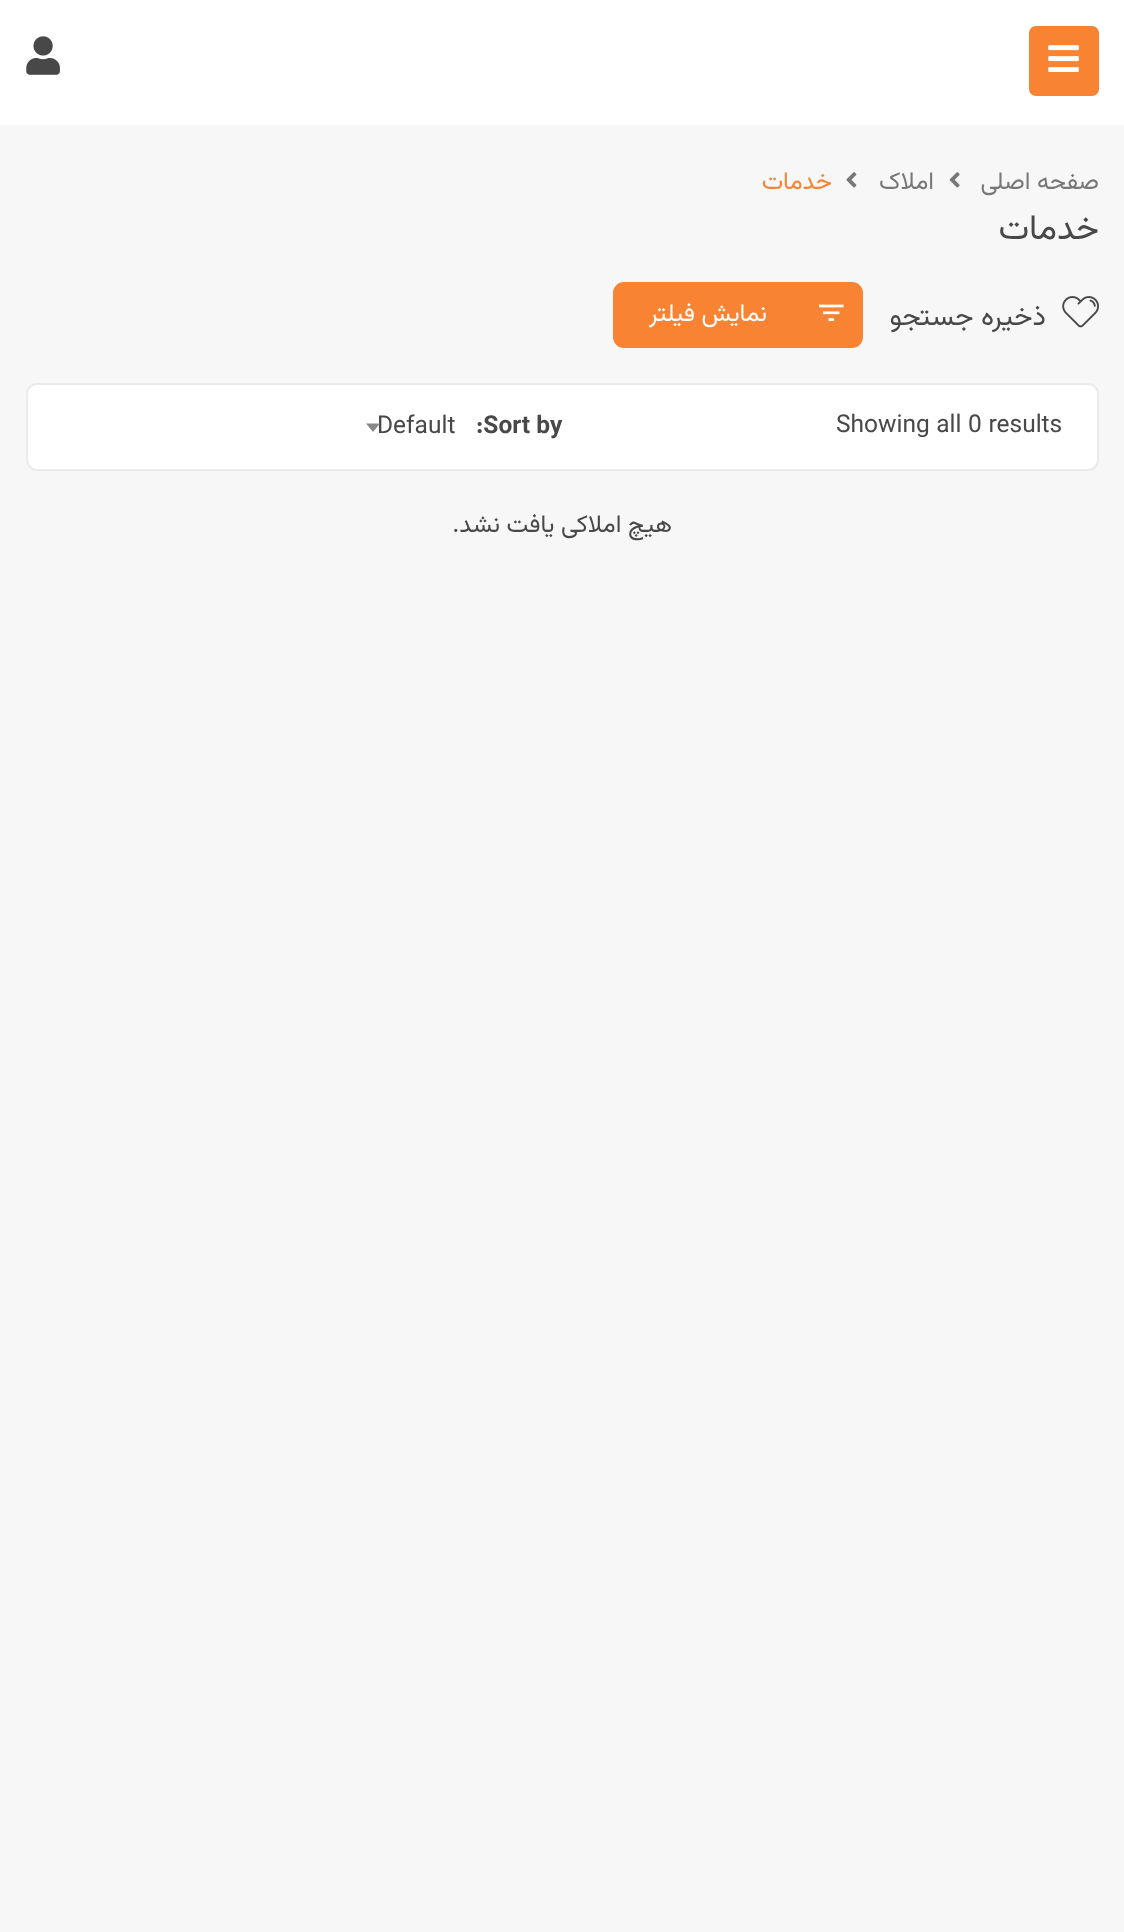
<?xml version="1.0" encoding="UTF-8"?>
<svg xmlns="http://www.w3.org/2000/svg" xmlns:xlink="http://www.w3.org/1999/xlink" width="1124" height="1932">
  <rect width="100%" height="100%" fill="#f7f7f7" />
  <rect width="1124" height="125" fill="#ffffff" />
  <rect x="1030" y="27" width="68" height="68" rx="6" fill="#f88433" stroke="#f88433" stroke-width="2" />
  <image x="1048" y="45" width="31" height="27" xlink:href="image1.png" />
  <image x="26" y="36" width="34" height="39" xlink:href="image2.png" />
  <image x="949" y="172" width="11" height="16" xlink:href="image3.png" />
  <image x="846" y="172" width="11" height="16" xlink:href="image4.png" />
  <image x="1062" y="296" width="37" height="32" xlink:href="image5.png" />
  <rect x="613" y="282" width="250" height="66" rx="11" fill="#f88433" />
  <image x="819" y="304" width="25" height="17" xlink:href="image6.png" />
  <rect x="27" y="384" width="1071" height="86" rx="10" fill="#ffffff" stroke="#ebebeb" stroke-width="2" />
  <text x="1099" y="189" style="font-family: Vazirmatn; font-size: 24.5px; direction: rtl; fill: #777777">صفحه اصلی</text>
  <text x="934" y="189" style="font-family: Vazirmatn; font-size: 24.5px; direction: rtl; fill: #777777">املاک</text>
  <text x="832" y="189" style="font-family: Vazirmatn; font-size: 24.5px; direction: rtl; fill: #f88433">خدمات</text>
  <text x="1099" y="239" style="font-family: Vazirmatn; font-size: 35px; direction: rtl; fill: #484848">خدمات</text>
  <text x="1046" y="325" style="font-family: Vazirmatn; font-size: 28px; direction: rtl; fill: #484848">ذخیره جستجو</text>
  <text x="767" y="321" style="font-family: Vazirmatn; font-size: 24.5px; direction: rtl; fill: #ffffff">نمایش فیلتر</text>
  <text x="836" y="432" style="font-family: Vazirmatn; font-size: 24.5px; fill: #484848">Showing all 0 results</text>
  <text x="476" y="433" style="font-family: Vazirmatn; font-size: 24.5px; font-weight: bold; fill: #484848">:Sort by</text>
  <text x="377" y="433" style="font-family: Vazirmatn; font-size: 24.5px; fill: #484848">Default</text>
  <path d="M 366 423.5 h 14 l -7 8.5 z" fill="#888888" />
  <text x="672" y="532" style="font-family: Vazirmatn; font-size: 24.5px; direction: rtl; fill: #484848">هیچ املاکی یافت نشد.</text>
</svg>
